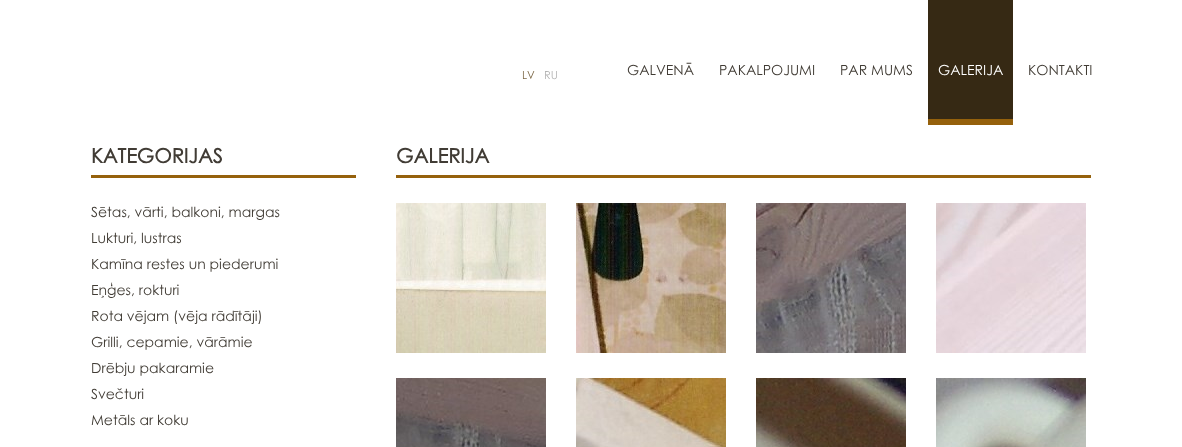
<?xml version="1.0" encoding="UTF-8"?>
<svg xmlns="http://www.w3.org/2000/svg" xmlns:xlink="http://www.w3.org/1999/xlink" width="1182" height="447">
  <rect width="100%" height="100%" fill="#ffffff" />
  <rect x="928" width="85" height="119" fill="#362914" />
  <rect x="928" y="119" width="85" height="6" fill="#95610c" />
  <rect x="91" y="175" width="265" height="3" fill="#95610c" />
  <rect x="396" y="175" width="695" height="3" fill="#95610c" />
  <image x="396" y="203" width="150" height="150" xlink:href="image1.png" />
  <image x="576" y="203" width="150" height="150" xlink:href="image2.png" />
  <image x="756" y="203" width="150" height="150" xlink:href="image3.png" />
  <image x="936" y="203" width="150" height="150" xlink:href="image4.png" />
  <image x="396" y="378" width="150" height="69" xlink:href="image5.png" />
  <image x="576" y="378" width="150" height="69" xlink:href="image6.png" />
  <image x="756" y="378" width="150" height="69" xlink:href="image7.png" />
  <image x="936" y="378" width="150" height="69" xlink:href="image8.png" />
  <text x="522" y="79" style="font-family: Century Gothic; font-size: 11px; fill: #7d6948">LV</text>
  <text x="544" y="79" style="font-family: Century Gothic; font-size: 11px; fill: #b3b3b3">RU</text>
  <text x="627" y="75" style="font-family: Century Gothic; font-size: 14px; fill: #413c35">GALVENĀ</text>
  <text x="719" y="75" style="font-family: Century Gothic; font-size: 14px; fill: #413c35">PAKALPOJUMI</text>
  <text x="840" y="75" style="font-family: Century Gothic; font-size: 14px; fill: #413c35">PAR MUMS</text>
  <text x="938" y="75" style="font-family: Century Gothic; font-size: 14px; fill: #ffffff">GALERIJA</text>
  <text x="1028" y="75" style="font-family: Century Gothic; font-size: 14px; fill: #413c35">KONTAKTI</text>
  <text x="91" y="163" style="font-family: Century Gothic; font-size: 20px; font-weight: bold; fill: #413c35">KATEGORIJAS</text>
  <text x="91" y="217" style="font-family: Century Gothic; font-size: 14px; fill: #413c35">Sētas, vārti, balkoni, margas</text>
  <text x="91" y="243" style="font-family: Century Gothic; font-size: 14px; fill: #413c35">Lukturi, lustras</text>
  <text x="91" y="269" style="font-family: Century Gothic; font-size: 14px; fill: #413c35">Kamīna restes un piederumi</text>
  <text x="91" y="295" style="font-family: Century Gothic; font-size: 14px; fill: #413c35">Eņģes, rokturi</text>
  <text x="91" y="321" style="font-family: Century Gothic; font-size: 14px; fill: #413c35">Rota vējam (vēja rādītāji)</text>
  <text x="91" y="347" style="font-family: Century Gothic; font-size: 14px; fill: #413c35">Grilli, cepamie, vārāmie</text>
  <text x="91" y="373" style="font-family: Century Gothic; font-size: 14px; fill: #413c35">Drēbju pakaramie</text>
  <text x="91" y="399" style="font-family: Century Gothic; font-size: 14px; fill: #413c35">Svečturi</text>
  <text x="91" y="425" style="font-family: Century Gothic; font-size: 14px; fill: #413c35">Metāls ar koku</text>
  <text x="396" y="163" style="font-family: Century Gothic; font-size: 20px; font-weight: bold; fill: #413c35">GALERIJA</text>
</svg>
